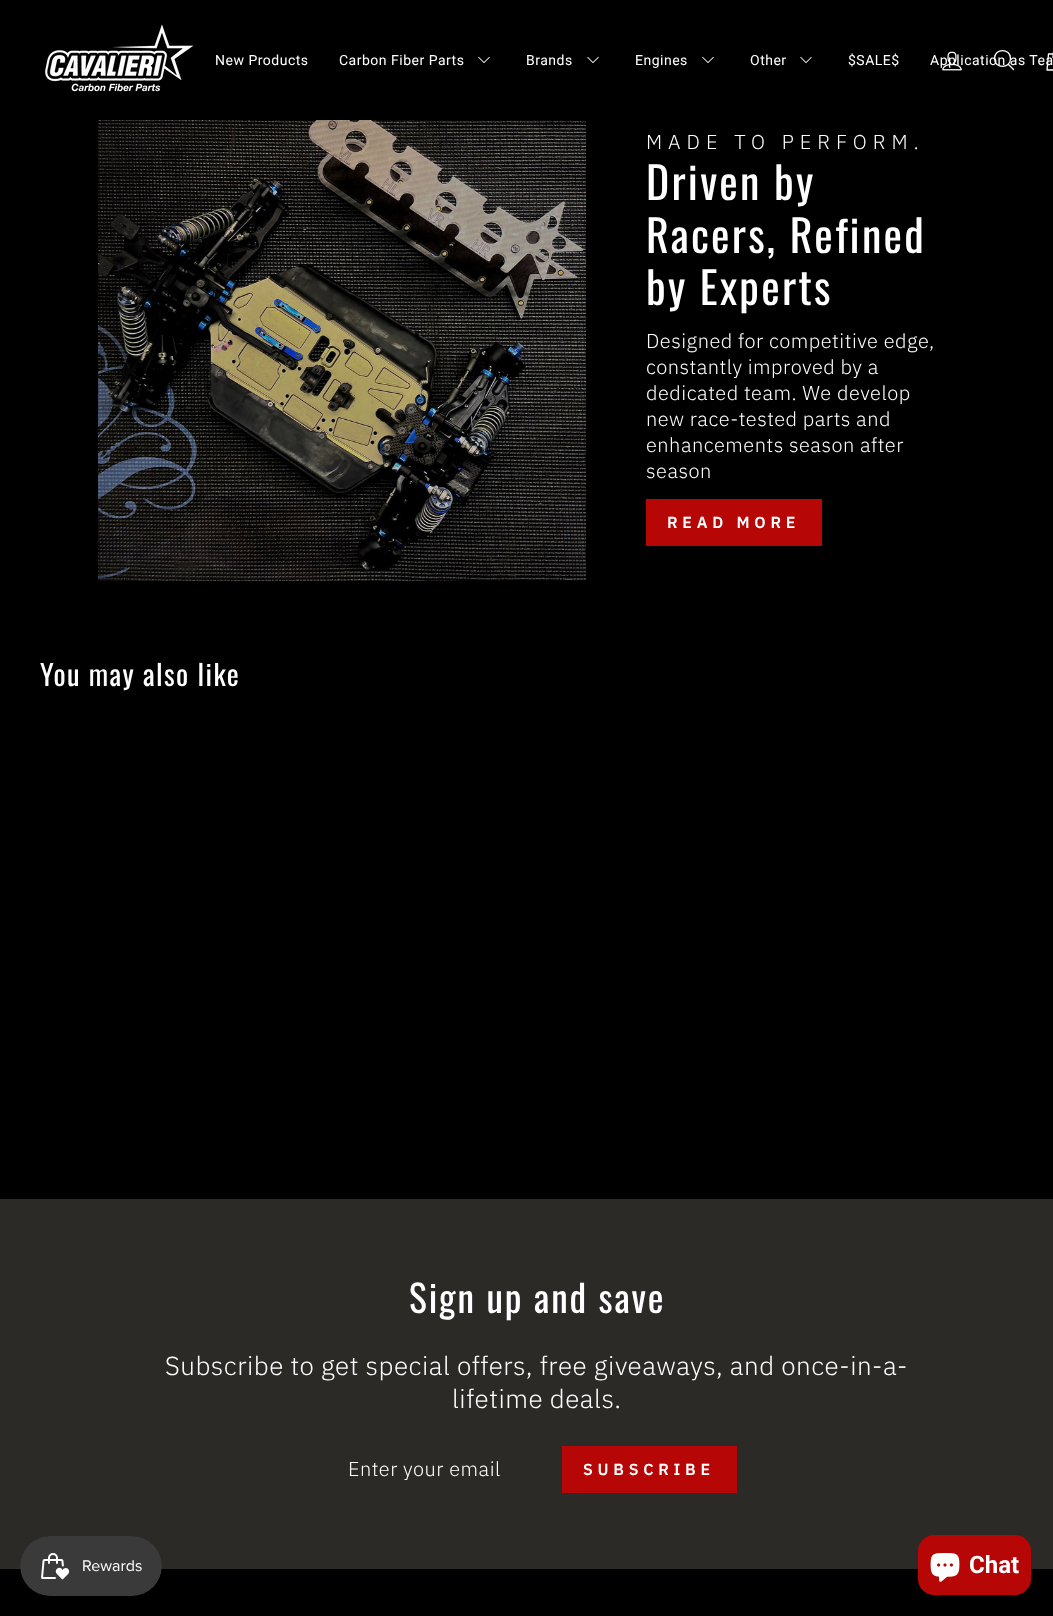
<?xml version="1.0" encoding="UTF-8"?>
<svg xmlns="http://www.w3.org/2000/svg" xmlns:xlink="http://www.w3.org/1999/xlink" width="1053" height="1616">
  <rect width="100%" height="100%" fill="#000000" />
  <image x="45" y="24" width="149" height="68" xlink:href="image1.png" />
  <path d="M 1010.5 58.5 c 0 10.5 -16 10.5 -16 0 c 0 -10.5 16 -10.5 16 0 z m 3 11 l -5 -5" fill="none" stroke="#ffffff" stroke-width="1.3" stroke-linecap="round" stroke-linejoin="round" />
  <path d="M 1053 57.5 c 0 -12 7 -12 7 0 m -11.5 -3.5 h 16 l 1.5 16 h -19 z" fill="none" stroke="#ffffff" stroke-width="1.3" stroke-linecap="round" stroke-linejoin="round" />
  <image x="478" y="57" width="12" height="6" xlink:href="image3.png" />
  <image x="587" y="57" width="12" height="6" xlink:href="image3.png" />
  <image x="702" y="57" width="12" height="6" xlink:href="image3.png" />
  <image x="800" y="57" width="12" height="6" xlink:href="image3.png" />
  <image x="98" y="120" width="488" height="461" xlink:href="image4.png" />
  <rect x="646" y="499" width="176" height="47" fill="#b60606" />
  <rect y="1199" width="1053" height="370" fill="#2b2a27" />
  <rect x="562" y="1446" width="175" height="47" fill="#b60606" />
  <image x="20" y="1536" width="142" height="60" xlink:href="image5.png" />
  <rect x="918" y="1535" width="113" height="60" rx="16" fill="#b60606" />
  <image x="930" y="1553" width="30" height="29" xlink:href="image6.png" />
  <text x="215" y="65" style="font-family: Roboto; font-size: 14px; letter-spacing: 0.5px; fill: #ffffff">New Products</text>
  <text x="339" y="65" style="font-family: Roboto; font-size: 14px; letter-spacing: 0.5px; fill: #ffffff">Carbon Fiber Parts</text>
  <text x="526" y="65" style="font-family: Roboto; font-size: 14px; letter-spacing: 0.5px; fill: #ffffff">Brands</text>
  <text x="635" y="65" style="font-family: Roboto; font-size: 14px; letter-spacing: 0.5px; fill: #ffffff">Engines</text>
  <text x="750" y="65" style="font-family: Roboto; font-size: 14px; letter-spacing: 0.5px; fill: #ffffff">Other</text>
  <text x="848" y="65" style="font-family: Roboto; font-size: 14px; letter-spacing: 0.5px; fill: #ffffff">$SALE$</text>
  <text x="930" y="65" style="font-family: Roboto; font-size: 14px; letter-spacing: 0.5px; fill: #ffffff">Application as Tea</text>
  <image x="942" y="51" width="20" height="20" xlink:href="image2.png" />
  <text x="646" y="149" style="font-family: IBM Plex Sans; font-size: 20px; font-weight: 300; letter-spacing: 6px; fill: #ffffff">MADE TO PERFORM.</text>
  <text x="646" y="200" style="font-family: Oswald; font-size: 44px; letter-spacing: 2.25px; fill: #ffffff">Driven by</text>
  <text x="646" y="253" style="font-family: Oswald; font-size: 44px; letter-spacing: 2.25px; fill: #ffffff">Racers, Refined</text>
  <text x="646" y="305" style="font-family: Oswald; font-size: 44px; letter-spacing: 2.25px; fill: #ffffff">by Experts</text>
  <text x="646" y="348" style="font-family: IBM Plex Sans; font-size: 20px; font-weight: 300; letter-spacing: 0.5px; fill: #ffffff">Designed for competitive edge,</text>
  <text x="646" y="374" style="font-family: IBM Plex Sans; font-size: 20px; font-weight: 300; letter-spacing: 0.5px; fill: #ffffff">constantly improved by a</text>
  <text x="646" y="400" style="font-family: IBM Plex Sans; font-size: 20px; font-weight: 300; letter-spacing: 0.5px; fill: #ffffff">dedicated team. We develop</text>
  <text x="646" y="426" style="font-family: IBM Plex Sans; font-size: 20px; font-weight: 300; letter-spacing: 0.5px; fill: #ffffff">new race-tested parts and</text>
  <text x="646" y="452" style="font-family: IBM Plex Sans; font-size: 20px; font-weight: 300; letter-spacing: 0.5px; fill: #ffffff">enhancements season after</text>
  <text x="646" y="478" style="font-family: IBM Plex Sans; font-size: 20px; font-weight: 300; letter-spacing: 0.5px; fill: #ffffff">season</text>
  <text x="667" y="528" style="font-family: IBM Plex Sans; font-size: 16px; font-weight: 600; letter-spacing: 4.75px; fill: #ffffff">READ MORE</text>
  <text x="40" y="686" style="font-family: Oswald; font-size: 28.5px; letter-spacing: 1.4px; fill: #ffffff">You may also like</text>
  <text x="409" y="1313" style="font-family: Oswald; font-size: 37.5px; letter-spacing: 1.9px; fill: #ffffff">Sign up and save</text>
  <text x="165" y="1375" style="font-family: IBM Plex Sans; font-size: 26px; font-weight: 300; letter-spacing: 0.5px; fill: #ffffff">Subscribe to get special offers, free giveaways, and once-in-a-</text>
  <text x="452" y="1408" style="font-family: IBM Plex Sans; font-size: 26px; font-weight: 300; letter-spacing: 0.5px; fill: #ffffff">lifetime deals.</text>
  <text x="348" y="1476" style="font-family: IBM Plex Sans; font-size: 20px; font-weight: 300; letter-spacing: 0.5px; fill: #ffffff">Enter your email</text>
  <text x="583" y="1475" style="font-family: IBM Plex Sans; font-size: 16px; font-weight: 600; letter-spacing: 4.75px; fill: #ffffff">SUBSCRIBE</text>
  <text x="969" y="1573" style="font-family: Roboto; font-size: 24px; font-weight: bold; fill: #ffffff">Chat</text>
</svg>
